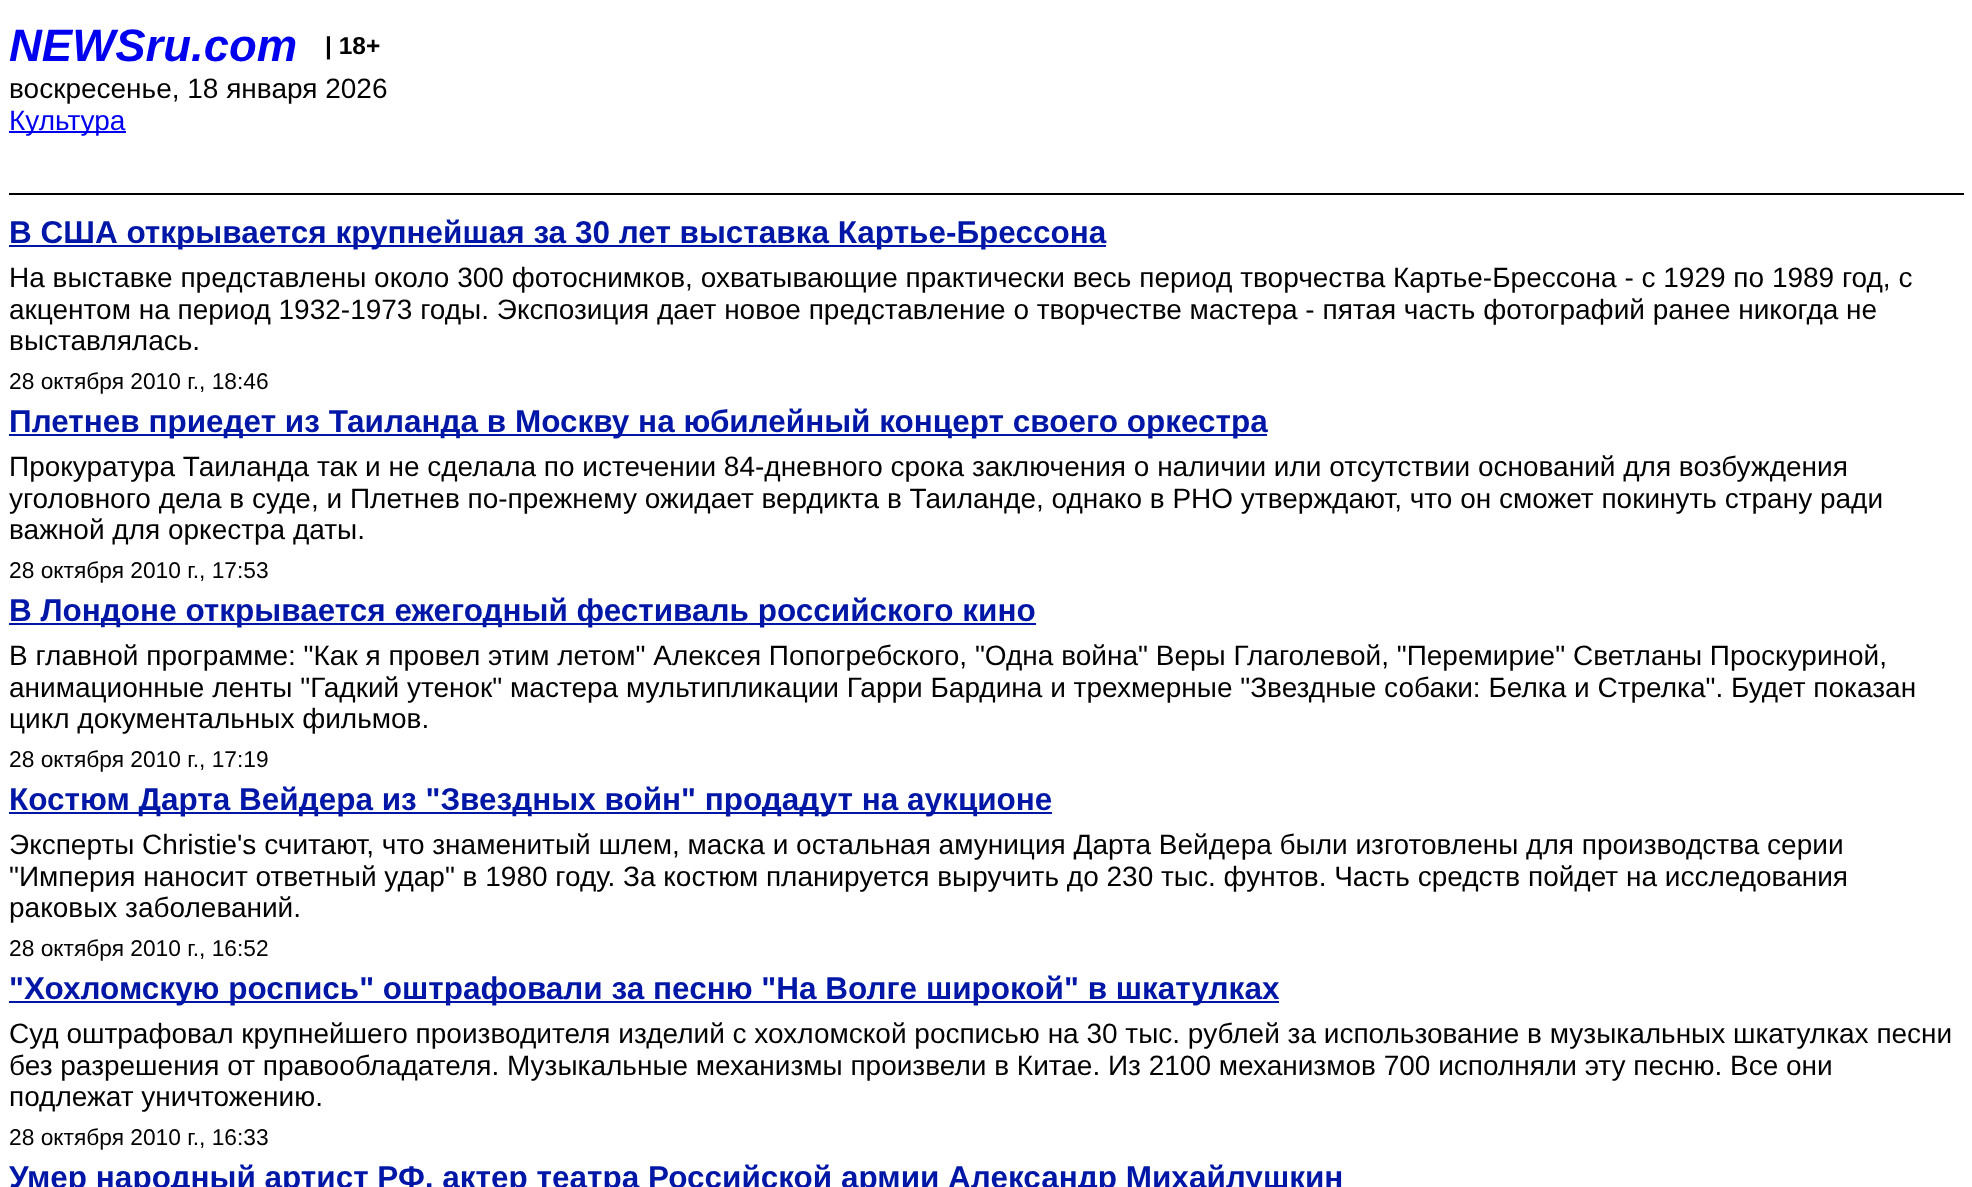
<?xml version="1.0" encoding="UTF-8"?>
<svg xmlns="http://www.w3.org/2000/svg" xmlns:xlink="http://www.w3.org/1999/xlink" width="1972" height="1187">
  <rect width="100%" height="100%" fill="#ffffff" />
  <rect x="9" y="193" width="1955" height="2" fill="#000000" />
  <rect x="9" y="131" width="117" height="2" fill="#0000ee" />
  <rect x="9" y="245" width="1097" height="2" fill="#0016a6" />
  <rect x="9" y="434" width="1258" height="2" fill="#0016a6" />
  <rect x="9" y="623" width="1027" height="2" fill="#0016a6" />
  <rect x="9" y="812" width="1043" height="2" fill="#0016a6" />
  <rect x="9" y="1001" width="1270" height="2" fill="#0016a6" />
  <text x="9" y="61" style="font-family: Liberation Sans; font-size: 45.5px; font-weight: bold; font-style: italic; fill: #0000ee">NEWSru.com</text>
  <text x="325" y="54" style="font-family: Liberation Sans; font-size: 24.5px; font-weight: bold; fill: #000000">| 18+</text>
  <text x="9" y="98" style="font-family: Liberation Sans; font-size: 28px; fill: #000000">воскресенье, 18 января 2026</text>
  <text x="9" y="130" style="font-family: Liberation Sans; font-size: 28px; fill: #0000ee">Культура</text>
  <text x="9" y="243" style="font-family: Liberation Sans; font-size: 31.5px; font-weight: bold; fill: #0016a6">В США открывается крупнейшая за 30 лет выставка Картье-Брессона</text>
  <text x="9" y="287" style="font-family: Liberation Sans; font-size: 28px; fill: #000000">На выставке представлены около 300 фотоснимков, охватывающие практически весь период творчества Картье-Брессона - с 1929 по 1989 год, с</text>
  <text x="9" y="319" style="font-family: Liberation Sans; font-size: 28px; fill: #000000">акцентом на период 1932-1973 годы. Экспозиция дает новое представление о творчестве мастера - пятая часть фотографий ранее никогда не</text>
  <text x="9" y="350" style="font-family: Liberation Sans; font-size: 28px; fill: #000000">выставлялась.</text>
  <text x="9" y="389" style="font-family: Liberation Sans; font-size: 22.75px; fill: #000000">28 октября 2010 г., 18:46</text>
  <text x="9" y="432" style="font-family: Liberation Sans; font-size: 31.5px; font-weight: bold; fill: #0016a6">Плетнев приедет из Таиланда в Москву на юбилейный концерт своего оркестра</text>
  <text x="9" y="476" style="font-family: Liberation Sans; font-size: 28px; fill: #000000">Прокуратура Таиланда так и не сделала по истечении 84-дневного срока заключения о наличии или отсутствии оснований для возбуждения</text>
  <text x="9" y="508" style="font-family: Liberation Sans; font-size: 28px; fill: #000000">уголовного дела в суде, и Плетнев по-прежнему ожидает вердикта в Таиланде, однако в РНО утверждают, что он сможет покинуть страну ради</text>
  <text x="9" y="539" style="font-family: Liberation Sans; font-size: 28px; fill: #000000">важной для оркестра даты.</text>
  <text x="9" y="578" style="font-family: Liberation Sans; font-size: 22.75px; fill: #000000">28 октября 2010 г., 17:53</text>
  <text x="9" y="621" style="font-family: Liberation Sans; font-size: 31.5px; font-weight: bold; fill: #0016a6">В Лондоне открывается ежегодный фестиваль российского кино</text>
  <text x="9" y="665" style="font-family: Liberation Sans; font-size: 28px; fill: #000000">В главной программе: "Как я провел этим летом" Алексея Попогребского, "Одна война" Веры Глаголевой, "Перемирие" Светланы Проскуриной,</text>
  <text x="9" y="697" style="font-family: Liberation Sans; font-size: 28px; fill: #000000">анимационные ленты "Гадкий утенок" мастера мультипликации Гарри Бардина и трехмерные "Звездные собаки: Белка и Стрелка". Будет показан</text>
  <text x="9" y="728" style="font-family: Liberation Sans; font-size: 28px; fill: #000000">цикл документальных фильмов.</text>
  <text x="9" y="767" style="font-family: Liberation Sans; font-size: 22.75px; fill: #000000">28 октября 2010 г., 17:19</text>
  <text x="9" y="810" style="font-family: Liberation Sans; font-size: 31.5px; font-weight: bold; fill: #0016a6">Костюм Дарта Вейдера из "Звездных войн" продадут на аукционе</text>
  <text x="9" y="854" style="font-family: Liberation Sans; font-size: 28px; fill: #000000">Эксперты Christie's считают, что знаменитый шлем, маска и остальная амуниция Дарта Вейдера были изготовлены для производства серии</text>
  <text x="9" y="886" style="font-family: Liberation Sans; font-size: 28px; fill: #000000">"Империя наносит ответный удар" в 1980 году. За костюм планируется выручить до 230 тыс. фунтов. Часть средств пойдет на исследования</text>
  <text x="9" y="917" style="font-family: Liberation Sans; font-size: 28px; fill: #000000">раковых заболеваний.</text>
  <text x="9" y="956" style="font-family: Liberation Sans; font-size: 22.75px; fill: #000000">28 октября 2010 г., 16:52</text>
  <text x="9" y="999" style="font-family: Liberation Sans; font-size: 31.5px; font-weight: bold; fill: #0016a6">"Хохломскую роспись" оштрафовали за песню "На Волге широкой" в шкатулках</text>
  <text x="9" y="1043" style="font-family: Liberation Sans; font-size: 28px; fill: #000000">Суд оштрафовал крупнейшего производителя изделий с хохломской росписью на 30 тыс. рублей за использование в музыкальных шкатулках песни</text>
  <text x="9" y="1075" style="font-family: Liberation Sans; font-size: 28px; fill: #000000">без разрешения от правообладателя. Музыкальные механизмы произвели в Китае. Из 2100 механизмов 700 исполняли эту песню. Все они</text>
  <text x="9" y="1106" style="font-family: Liberation Sans; font-size: 28px; fill: #000000">подлежат уничтожению.</text>
  <text x="9" y="1145" style="font-family: Liberation Sans; font-size: 22.75px; fill: #000000">28 октября 2010 г., 16:33</text>
  <text x="9" y="1188" style="font-family: Liberation Sans; font-size: 31.5px; font-weight: bold; fill: #0016a6">Умер народный артист РФ, актер театра Российской армии Александр Михайлушкин</text>
</svg>
